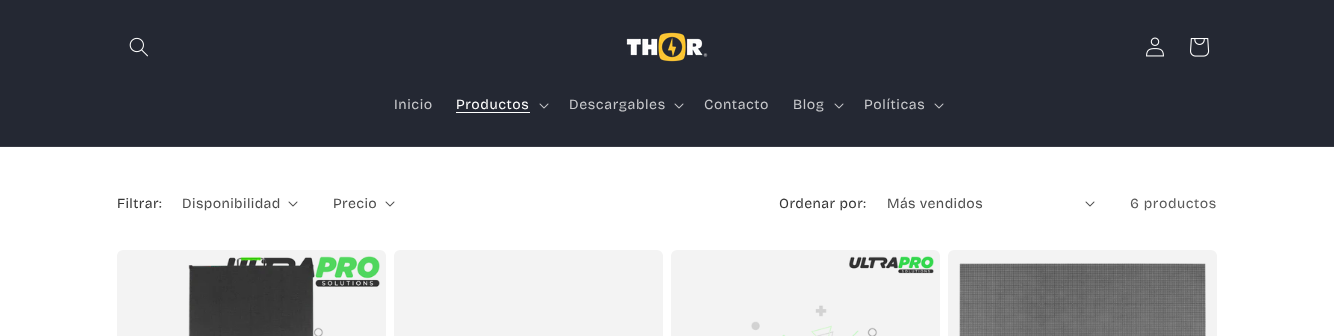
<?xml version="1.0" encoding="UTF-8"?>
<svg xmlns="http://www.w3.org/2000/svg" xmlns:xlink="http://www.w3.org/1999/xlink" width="1334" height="336">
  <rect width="100%" height="100%" fill="#ffffff" />
  <rect width="1334" height="146" fill="#242833" />
  <rect y="146" width="1334" height="1" fill="#363943" />
  <image x="129" y="37" width="19" height="20" xlink:href="image1.png" />
  <image x="626" y="32" width="82" height="30" xlink:href="image2.png" />
  <image x="1146" y="37" width="18" height="20" xlink:href="image3.png" />
  <image x="1190" y="38" width="20" height="19" xlink:href="image4.png" />
  <rect x="456" y="112" width="74" height="1" fill="#ffffff" />
  <image x="539" y="103" width="10" height="6" xlink:href="image5.png" />
  <image x="674" y="103" width="10" height="6" xlink:href="image5.png" />
  <image x="834" y="103" width="10" height="6" xlink:href="image5.png" />
  <image x="934" y="103" width="10" height="6" xlink:href="image5.png" />
  <image x="288" y="201" width="10" height="6" xlink:href="image6.png" />
  <image x="385" y="201" width="10" height="6" xlink:href="image6.png" />
  <image x="1085" y="201" width="10" height="6" xlink:href="image6.png" />
  <rect x="117" y="250" width="269" height="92" rx="6" fill="#f3f3f3" />
  <image x="188" y="256" width="192" height="80" xlink:href="image7.png" />
  <rect x="394" y="250" width="269" height="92" rx="6" fill="#f3f3f3" />
  <rect x="671" y="250" width="269" height="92" rx="6" fill="#f3f3f3" />
  <image x="751" y="256" width="183" height="80" xlink:href="image8.png" />
  <rect x="948" y="250" width="269" height="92" rx="6" fill="#f3f3f3" />
  <image x="959" y="263" width="247" height="73" xlink:href="image9.png" />
  <text x="394" y="109" style="font-family: Bricolage Grotesque; font-size: 14px; letter-spacing: 0.6px; fill: #c8c9cc">Inicio</text>
  <text x="456" y="109" style="font-family: Bricolage Grotesque; font-size: 14px; letter-spacing: 0.6px; fill: #ffffff">Productos</text>
  <text x="569" y="109" style="font-family: Bricolage Grotesque; font-size: 14px; letter-spacing: 0.6px; fill: #c8c9cc">Descargables</text>
  <text x="704" y="109" style="font-family: Bricolage Grotesque; font-size: 14px; letter-spacing: 0.6px; fill: #c8c9cc">Contacto</text>
  <text x="793" y="109" style="font-family: Bricolage Grotesque; font-size: 14px; letter-spacing: 0.6px; fill: #c8c9cc">Blog</text>
  <text x="864" y="109" style="font-family: Bricolage Grotesque; font-size: 14px; letter-spacing: 0.6px; fill: #c8c9cc">Políticas</text>
  <text x="117" y="208" style="font-family: Bricolage Grotesque; font-size: 14px; letter-spacing: 0.4px; fill: #363636">Filtrar:</text>
  <text x="182" y="208" style="font-family: Bricolage Grotesque; font-size: 14px; letter-spacing: 0.4px; fill: #4d4d4d">Disponibilidad</text>
  <text x="333" y="208" style="font-family: Bricolage Grotesque; font-size: 14px; letter-spacing: 0.4px; fill: #4d4d4d">Precio</text>
  <text x="779" y="208" style="font-family: Bricolage Grotesque; font-size: 14px; letter-spacing: 0.4px; fill: #363636">Ordenar por:</text>
  <text x="887" y="208" style="font-family: Bricolage Grotesque; font-size: 14px; letter-spacing: 0.4px; fill: #4d4d4d">Más vendidos</text>
  <text x="1130" y="208" style="font-family: Bricolage Grotesque; font-size: 14px; letter-spacing: 0.6px; fill: #595959">6 productos</text>
</svg>
